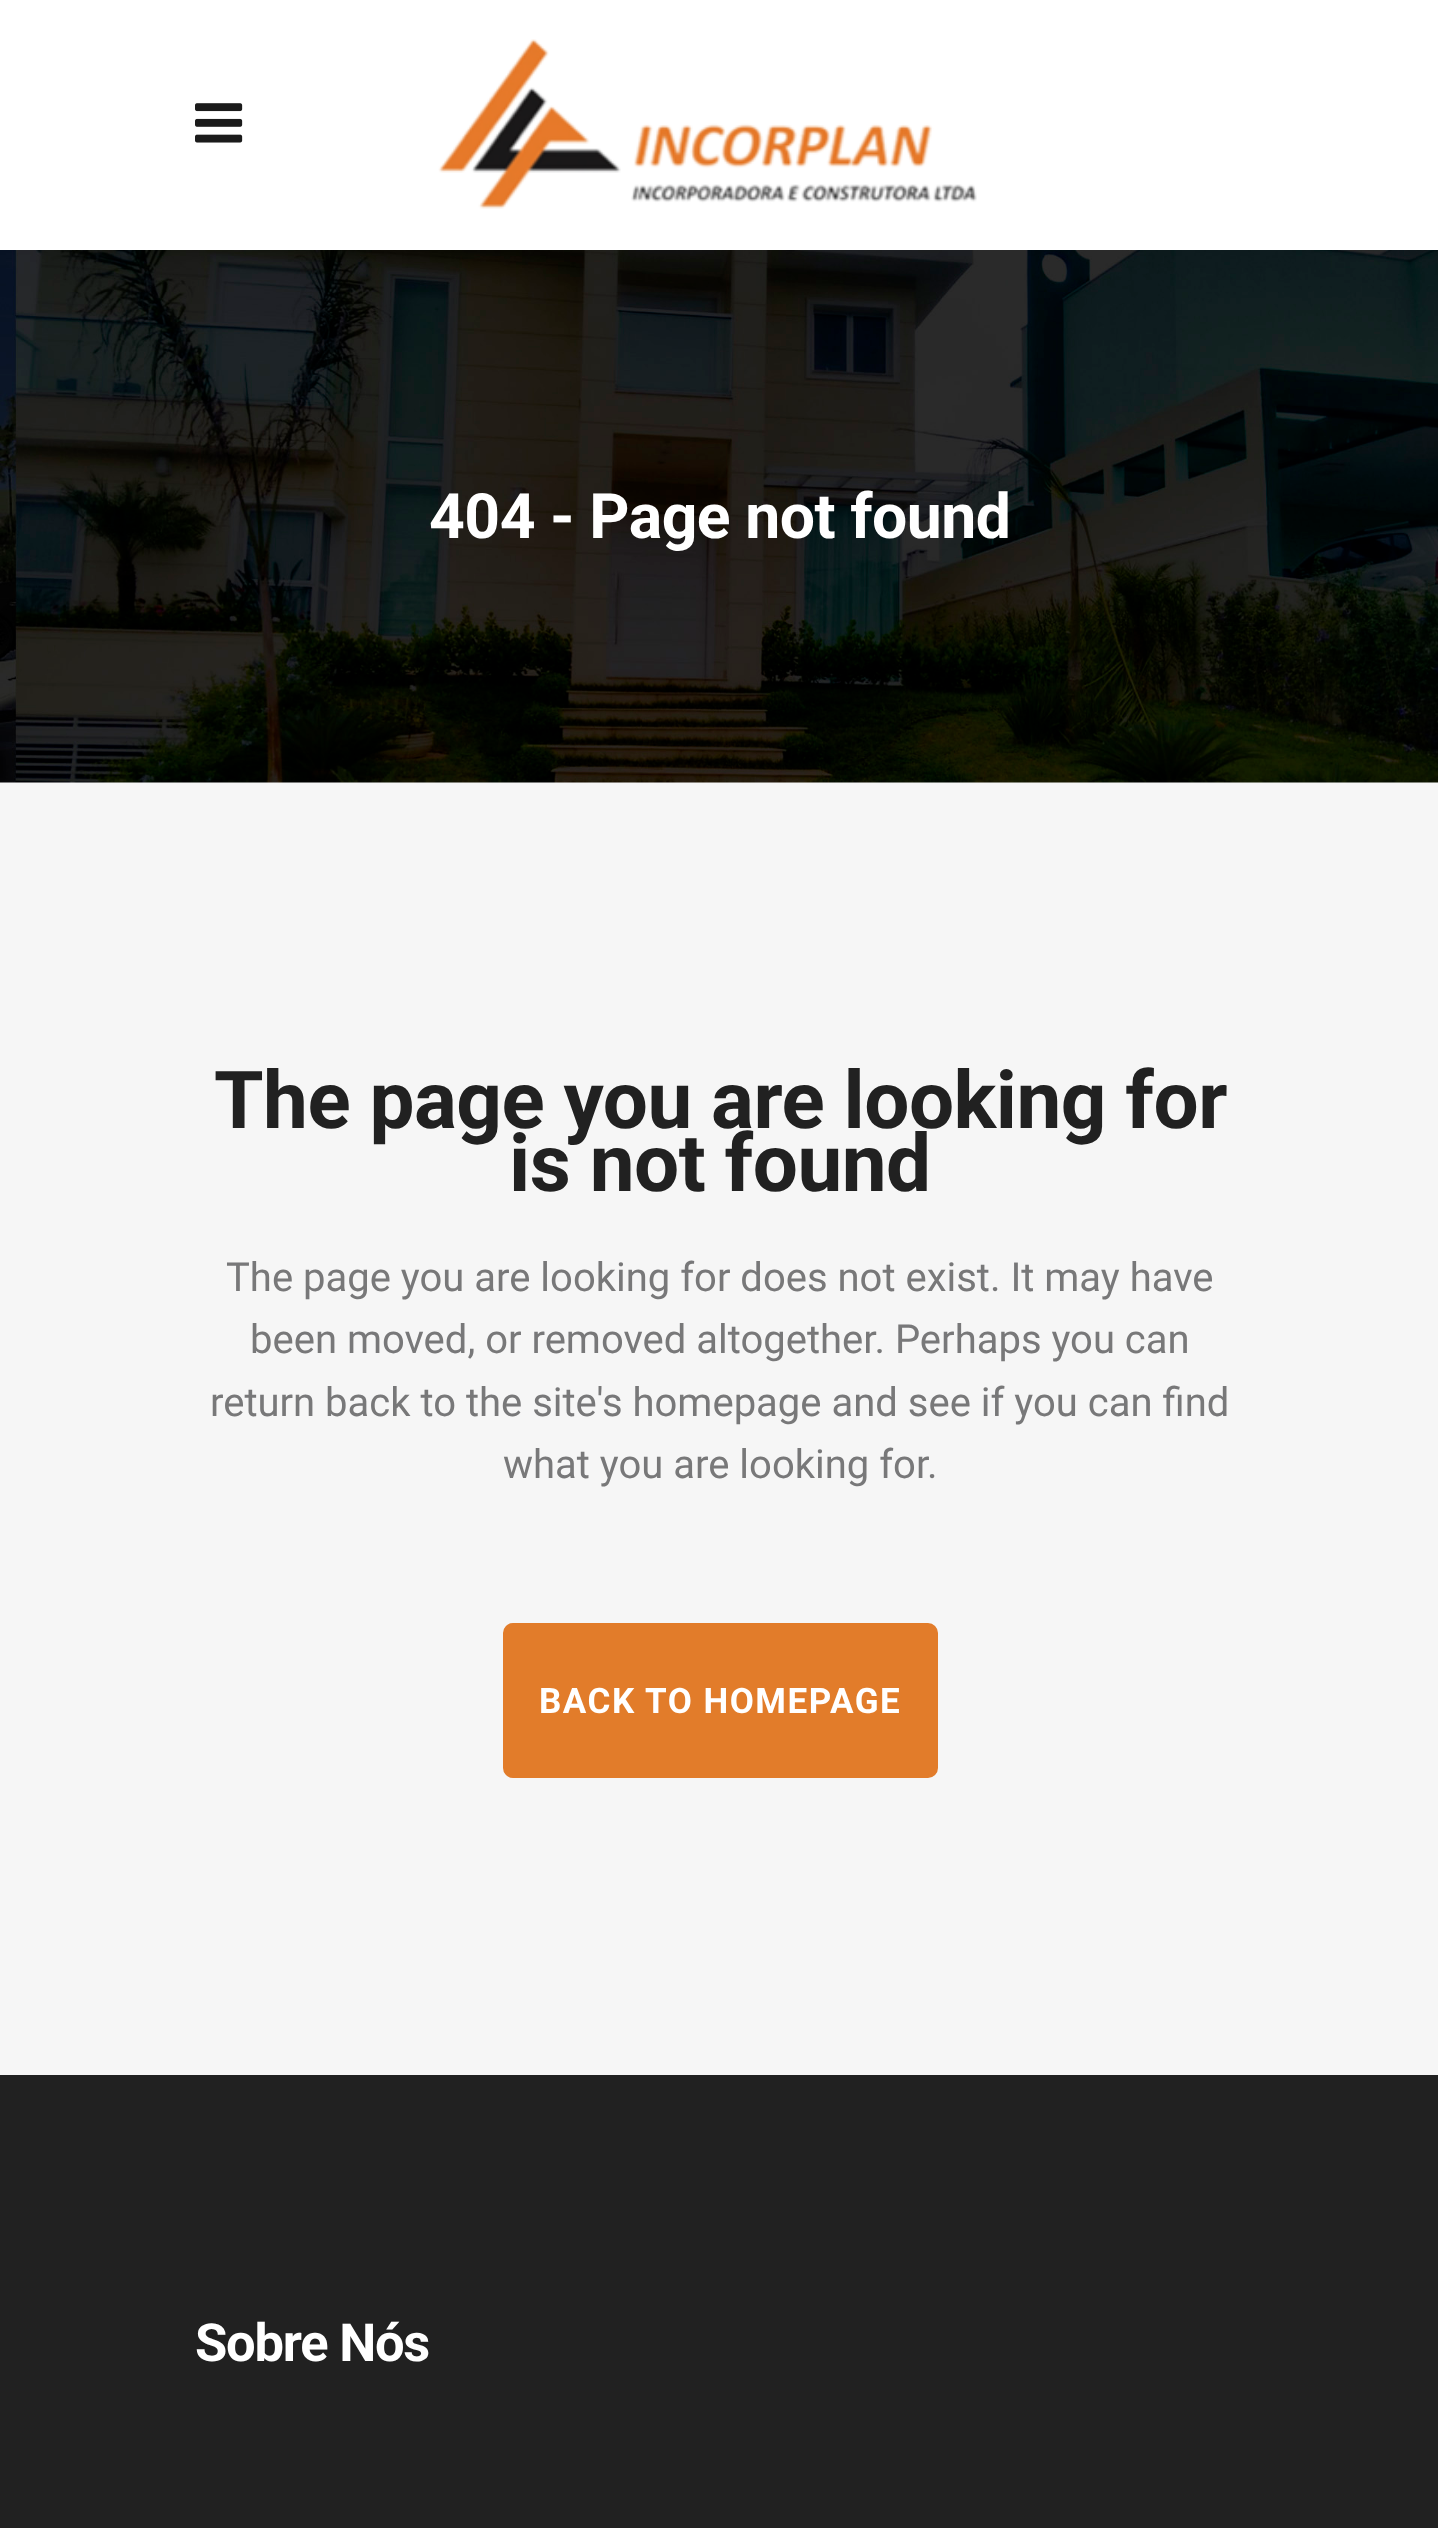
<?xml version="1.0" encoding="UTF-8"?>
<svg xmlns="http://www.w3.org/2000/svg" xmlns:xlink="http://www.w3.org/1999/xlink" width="1438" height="2528">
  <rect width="100%" height="100%" fill="#f6f6f6" />
  <rect width="1438" height="250" fill="#ffffff" />
  <image x="195" y="103" width="48" height="40" xlink:href="image1.png" />
  <image x="438" y="39" width="539" height="170" xlink:href="image2.png" />
  <image x="0" y="250" width="1438" height="533" xlink:href="image3.png" />
  <rect x="504.5" y="1624.5" width="432" height="152" rx="8.5" fill="#e27c2a" stroke="#e27c2a" stroke-width="3" />
  <rect y="2075" width="1438" height="453" fill="#212121" />
  <text x="429" y="538" style="font-family: Roboto; font-size: 62.5px; font-weight: bold; letter-spacing: -0.5px; fill: #ffffff">404 - Page not found</text>
  <text x="214" y="1128" style="font-family: Roboto; font-size: 80px; font-weight: bold; letter-spacing: -0.5px; fill: #212121">The page you are looking for</text>
  <text x="509" y="1191" style="font-family: Roboto; font-size: 80px; font-weight: bold; letter-spacing: -0.5px; fill: #212121">is not found</text>
  <text x="226" y="1291" style="font-family: Roboto; font-size: 40px; fill: #787879">The page you are looking for does not exist. It may have</text>
  <text x="250" y="1353" style="font-family: Roboto; font-size: 40px; fill: #787879">been moved, or removed altogether. Perhaps you can</text>
  <text x="210" y="1416" style="font-family: Roboto; font-size: 40px; fill: #787879">return back to the site's homepage and see if you can find</text>
  <text x="503" y="1478" style="font-family: Roboto; font-size: 40px; fill: #787879">what you are looking for.</text>
  <text x="539" y="1713" style="font-family: Roboto; font-size: 35px; font-weight: bold; letter-spacing: 1.5px; fill: #ffffff">BACK TO HOMEPAGE</text>
  <text x="195" y="2361" style="font-family: Roboto; font-size: 52.5px; font-weight: bold; letter-spacing: -1.25px; fill: #ffffff">Sobre Nós</text>
</svg>
